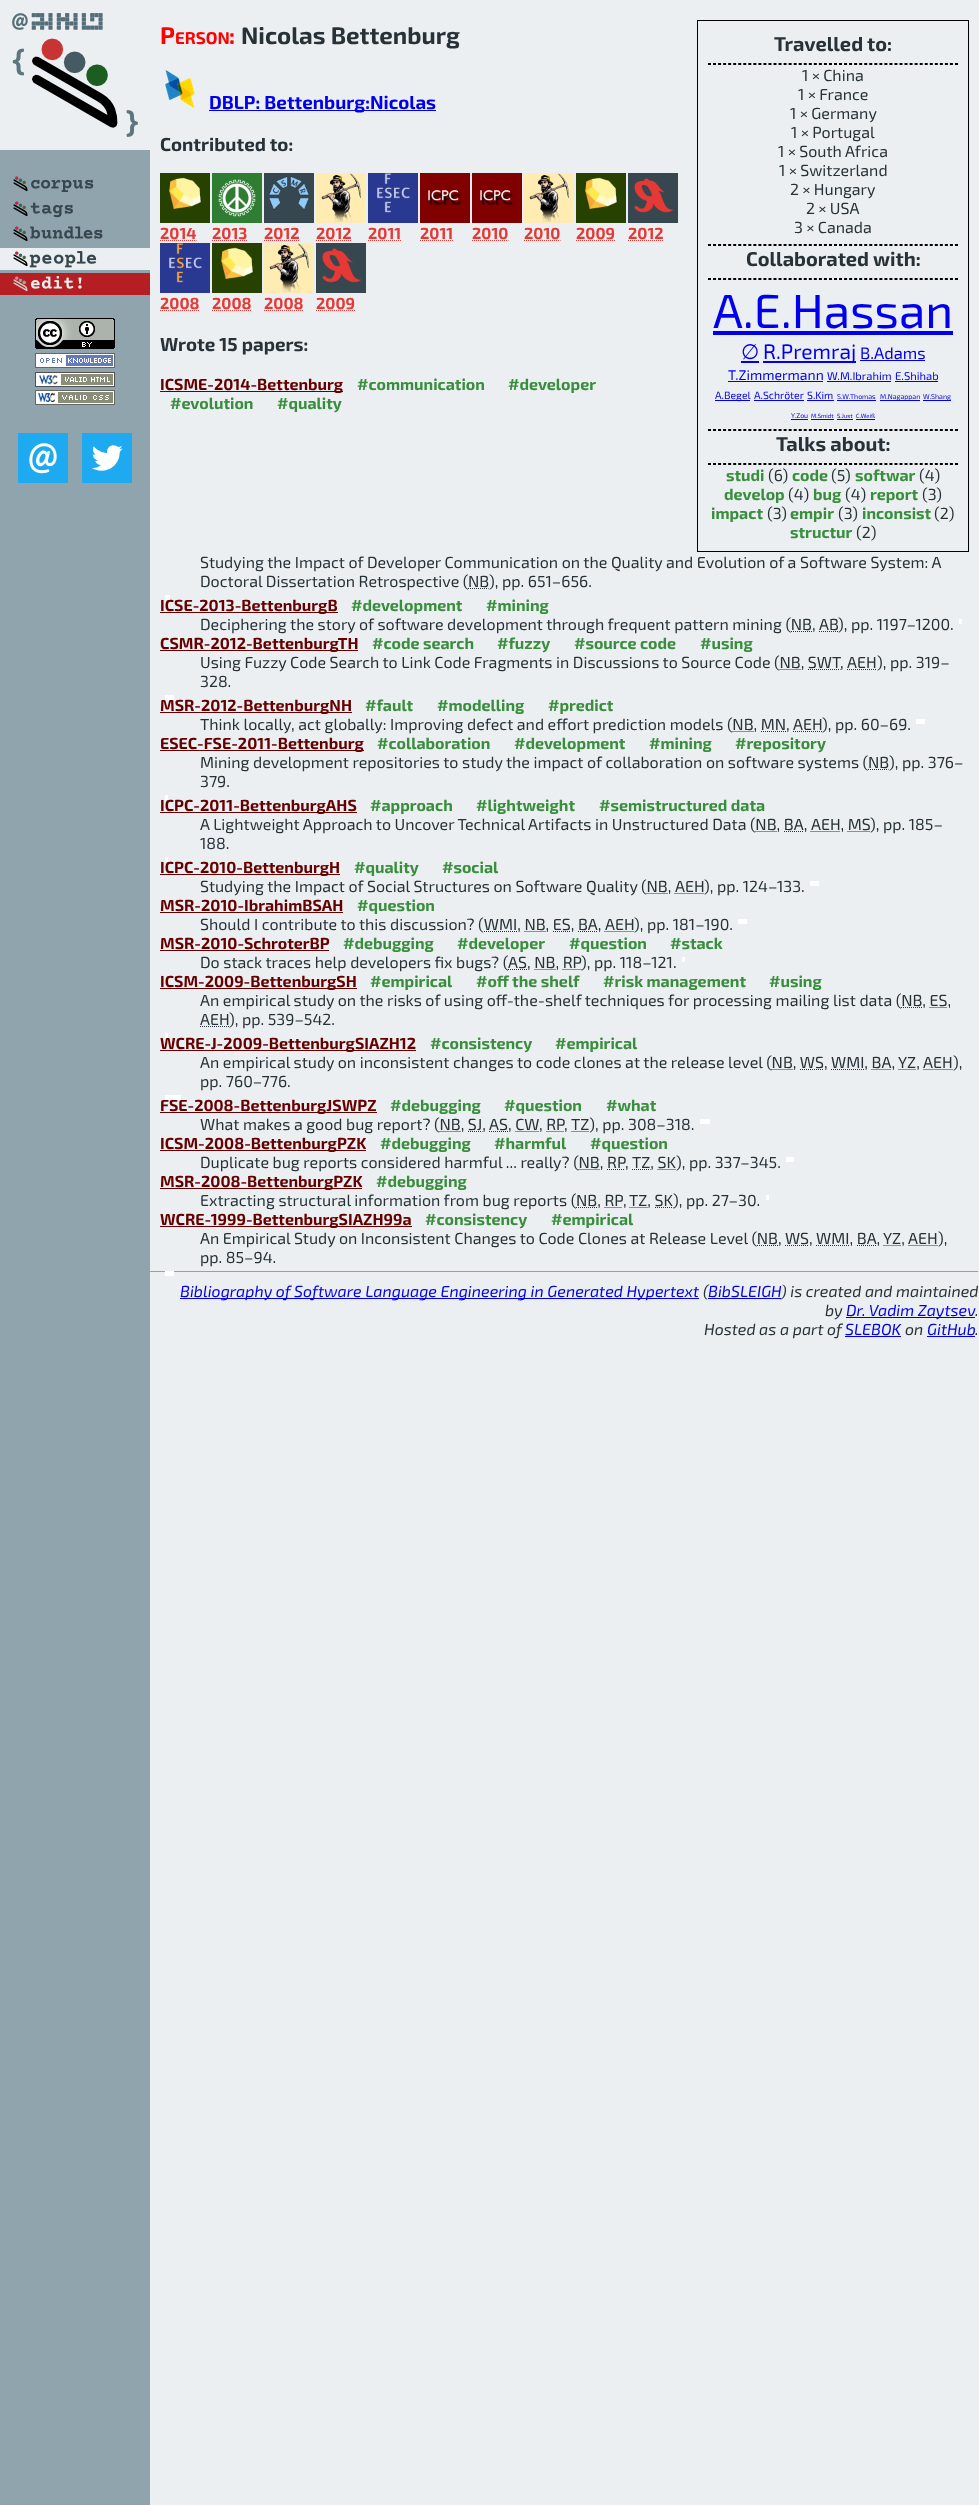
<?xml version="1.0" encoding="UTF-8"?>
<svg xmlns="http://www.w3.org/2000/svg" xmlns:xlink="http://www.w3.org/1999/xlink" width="979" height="2505">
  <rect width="100%" height="100%" fill="#eceff1" />
  <rect y="150" width="150" height="2355" fill="#90a4ae" />
  <image x="0" y="0" width="150" height="150" xlink:href="image1.png" />
  <image x="13" y="176" width="81" height="16" xlink:href="image2.png" />
  <image x="13" y="201" width="60" height="17" xlink:href="image3.png" />
  <image x="13" y="226" width="90" height="16" xlink:href="image4.png" />
  <image x="0" y="248" width="150" height="22" xlink:href="image5.png" />
  <image x="0" y="273" width="150" height="22" xlink:href="image6.png" />
  <image x="35" y="318" width="80" height="31" xlink:href="image7.png" />
  <image x="35" y="353" width="80" height="15" xlink:href="image8.png" />
  <image x="35" y="372" width="80" height="15" xlink:href="image9.png" />
  <image x="35" y="390" width="80" height="15" xlink:href="image10.png" />
  <image x="18" y="433" width="50" height="50" xlink:href="image11.png" />
  <image x="82" y="433" width="50" height="50" xlink:href="image12.png" />
  <rect x="697.5" y="20.5" width="271" height="531" fill="none" stroke="#000000" />
  <path d="M 708 63.5 h 250" fill="none" stroke="#000000" stroke-dasharray="3 2.04" />
  <rect x="957" y="63" width="1" height="2" fill="#000000" />
  <path d="M 708 64.5 h 250" fill="none" stroke="#000000" stroke-dasharray="3 2.04" />
  <path d="M 708 244.5 h 250" fill="none" stroke="#000000" stroke-dasharray="3 2.04" />
  <rect x="957" y="244" width="1" height="2" fill="#000000" />
  <path d="M 708 245.5 h 250" fill="none" stroke="#000000" stroke-dasharray="3 2.04" />
  <path d="M 708 278.5 h 250" fill="none" stroke="#000000" stroke-dasharray="3 2.04" />
  <rect x="957" y="278" width="1" height="2" fill="#000000" />
  <path d="M 708 279.5 h 250" fill="none" stroke="#000000" stroke-dasharray="3 2.04" />
  <rect x="713" y="331" width="240" height="4" fill="#0000ee" />
  <rect x="741" y="361" width="18" height="2" fill="#0000ee" />
  <rect x="763" y="361" width="93" height="2" fill="#0000ee" />
  <rect x="860" y="360" width="65" height="1" fill="#0000ee" />
  <rect x="728" y="381" width="95" height="1" fill="#0000ee" />
  <rect x="827" y="381" width="64" height="1" fill="#0000ee" />
  <rect x="895" y="381" width="43" height="1" fill="#0000ee" />
  <rect x="715" y="400" width="35" height="1" fill="#0000ee" />
  <rect x="754" y="400" width="50" height="1" fill="#0000ee" />
  <rect x="807" y="400" width="27" height="1" fill="#0000ee" />
  <rect x="837" y="400" width="39" height="1" fill="#0000ee" />
  <rect x="880" y="400" width="40" height="1" fill="#0000ee" />
  <rect x="923" y="400" width="28" height="1" fill="#0000ee" />
  <rect x="791" y="419" width="17" height="1" fill="#0000ee" />
  <rect x="811" y="419" width="23" height="1" fill="#0000ee" />
  <rect x="837" y="419" width="16" height="1" fill="#0000ee" />
  <rect x="856" y="419" width="19" height="1" fill="#0000ee" />
  <path d="M 708 429.5 h 250" fill="none" stroke="#000000" stroke-dasharray="3 2.04" />
  <rect x="957" y="429" width="1" height="2" fill="#000000" />
  <path d="M 708 430.5 h 250" fill="none" stroke="#000000" stroke-dasharray="3 2.04" />
  <path d="M 708 463.5 h 250" fill="none" stroke="#000000" stroke-dasharray="3 2.04" />
  <rect x="957" y="463" width="1" height="2" fill="#000000" />
  <path d="M 708 464.5 h 250" fill="none" stroke="#000000" stroke-dasharray="3 2.04" />
  <image x="165" y="70" width="30" height="38" xlink:href="image13.png" />
  <rect x="209" y="110" width="227" height="1" fill="#0000ee" />
  <image x="160" y="173" width="50" height="50" xlink:href="image14.png" />
  <path d="M 160 240.5 h 36.5" fill="none" stroke="#e53935" stroke-dasharray="1 1" />
  <image x="212" y="173" width="50" height="50" xlink:href="image15.png" />
  <path d="M 212 240.5 h 35.5" fill="none" stroke="#e53935" stroke-dasharray="1 1" />
  <image x="264" y="173" width="50" height="50" xlink:href="image16.png" />
  <path d="M 264 240.5 h 35.5" fill="none" stroke="#e53935" stroke-dasharray="1 1" />
  <image x="316" y="173" width="50" height="50" xlink:href="image17.png" />
  <path d="M 316 240.5 h 35.5" fill="none" stroke="#e53935" stroke-dasharray="1 1" />
  <image x="368" y="173" width="50" height="50" xlink:href="image18.png" />
  <path d="M 368 240.5 h 33" fill="none" stroke="#e53935" stroke-dasharray="1 1" />
  <image x="420" y="173" width="50" height="50" xlink:href="image19.png" />
  <path d="M 420 240.5 h 33" fill="none" stroke="#e53935" stroke-dasharray="1 1" />
  <image x="472" y="173" width="50" height="50" xlink:href="image19.png" />
  <path d="M 472 240.5 h 36.5" fill="none" stroke="#e53935" stroke-dasharray="1 1" />
  <image x="524" y="173" width="50" height="50" xlink:href="image17.png" />
  <path d="M 524 240.5 h 36.5" fill="none" stroke="#e53935" stroke-dasharray="1 1" />
  <image x="576" y="173" width="50" height="50" xlink:href="image14.png" />
  <path d="M 576 240.5 h 39" fill="none" stroke="#e53935" stroke-dasharray="1 1" />
  <image x="628" y="173" width="50" height="50" xlink:href="image20.png" />
  <path d="M 628 240.5 h 35.5" fill="none" stroke="#e53935" stroke-dasharray="1 1" />
  <image x="160" y="243" width="50" height="50" xlink:href="image21.png" />
  <path d="M 160 310.5 h 39.5" fill="none" stroke="#e53935" stroke-dasharray="1 1" />
  <image x="212" y="243" width="50" height="50" xlink:href="image14.png" />
  <path d="M 212 310.5 h 39.5" fill="none" stroke="#e53935" stroke-dasharray="1 1" />
  <image x="264" y="243" width="50" height="50" xlink:href="image17.png" />
  <path d="M 264 310.5 h 39.5" fill="none" stroke="#e53935" stroke-dasharray="1 1" />
  <image x="316" y="243" width="50" height="50" xlink:href="image20.png" />
  <path d="M 316 310.5 h 39" fill="none" stroke="#e53935" stroke-dasharray="1 1" />
  <rect x="160" y="391" width="183" height="1" fill="#660000" />
  <path d="M 468 588.5 h 20.5" fill="none" stroke="#263238" stroke-dasharray="1 1" />
  <rect x="160" y="612" width="178" height="1" fill="#660000" />
  <path d="M 791 631.5 h 21 m 7 0 h 19" fill="none" stroke="#263238" stroke-dasharray="1 1" />
  <rect x="959" y="619" width="3" height="5" fill="#ffffff" />
  <rect x="160" y="650" width="198" height="1" fill="#660000" />
  <path d="M 847 669.5 h 29.5" fill="none" stroke="#263238" stroke-dasharray="1 1" />
  <path d="M 779.5 669.5 h 21 m 7.5 0 h 32.5" fill="none" stroke="#263238" stroke-dasharray="1 1" />
  <rect x="160" y="712" width="192" height="1" fill="#660000" />
  <path d="M 793 731.5 h 29" fill="none" stroke="#263238" stroke-dasharray="1 1" />
  <path d="M 732.5 731.5 h 21 m 7.5 0 h 25" fill="none" stroke="#263238" stroke-dasharray="1 1" />
  <rect x="916" y="719" width="9" height="5" fill="#ffffff" />
  <rect x="160" y="750" width="204" height="1" fill="#660000" />
  <path d="M 868 769.5 h 20.5" fill="none" stroke="#263238" stroke-dasharray="1 1" />
  <rect x="160" y="812" width="197" height="1" fill="#660000" />
  <path d="M 810.5 831.5 h 29.5" fill="none" stroke="#263238" stroke-dasharray="1 1" />
  <path d="M 755.5 831.5 h 21 m 7.5 0 h 19.5" fill="none" stroke="#263238" stroke-dasharray="1 1" />
  <path d="M 847.5 831.5 h 22.5" fill="none" stroke="#263238" stroke-dasharray="1 1" />
  <rect x="160" y="874" width="180" height="1" fill="#660000" />
  <path d="M 646.5 893.5 h 21 m 7 0 h 29.5" fill="none" stroke="#263238" stroke-dasharray="1 1" />
  <rect x="810" y="881" width="9" height="5" fill="#ffffff" />
  <rect x="160" y="912" width="183" height="1" fill="#660000" />
  <path d="M 604.5 931.5 h 29.5" fill="none" stroke="#263238" stroke-dasharray="1 1" />
  <path d="M 484 931.5 h 33 m 7.5 0 h 21" fill="none" stroke="#263238" stroke-dasharray="1 1" />
  <path d="M 553 931.5 h 18 m 7 0 h 20" fill="none" stroke="#263238" stroke-dasharray="1 1" />
  <rect x="738" y="919" width="9" height="5" fill="#ffffff" />
  <rect x="160" y="950" width="169" height="1" fill="#660000" />
  <path d="M 508 969.5 h 19 m 7.5 0 h 21" fill="none" stroke="#263238" stroke-dasharray="1 1" />
  <path d="M 562.5 969.5 h 19" fill="none" stroke="#263238" stroke-dasharray="1 1" />
  <rect x="682" y="957" width="3" height="5" fill="#ffffff" />
  <rect x="160" y="988" width="197" height="1" fill="#660000" />
  <path d="M 901 1007.5 h 21.5 m 7 0 h 18" fill="none" stroke="#263238" stroke-dasharray="1 1" />
  <path d="M 200 1026.5 h 29.5" fill="none" stroke="#263238" stroke-dasharray="1 1" />
  <rect x="160" y="1050" width="256" height="1" fill="#660000" />
  <path d="M 898.5 1069.5 h 18" fill="none" stroke="#263238" stroke-dasharray="1 1" />
  <path d="M 923.5 1069.5 h 29" fill="none" stroke="#263238" stroke-dasharray="1 1" />
  <path d="M 771.5 1069.5 h 21.5 m 7 0 h 24" fill="none" stroke="#263238" stroke-dasharray="1 1" />
  <path d="M 831 1069.5 h 33.5 m 7 0 h 20" fill="none" stroke="#263238" stroke-dasharray="1 1" />
  <rect x="160" y="1112" width="217" height="1" fill="#660000" />
  <path d="M 489 1131.5 h 19" fill="none" stroke="#263238" stroke-dasharray="1 1" />
  <path d="M 571.5 1131.5 h 18" fill="none" stroke="#263238" stroke-dasharray="1 1" />
  <path d="M 439.5 1131.5 h 21 m 7.5 0 h 14.5" fill="none" stroke="#263238" stroke-dasharray="1 1" />
  <path d="M 515.5 1131.5 h 23.5" fill="none" stroke="#263238" stroke-dasharray="1 1" />
  <path d="M 546.5 1131.5 h 18" fill="none" stroke="#263238" stroke-dasharray="1 1" />
  <rect x="700" y="1119" width="10" height="5" fill="#ffffff" />
  <rect x="160" y="1150" width="206" height="1" fill="#660000" />
  <path d="M 632 1169.5 h 18.5" fill="none" stroke="#263238" stroke-dasharray="1 1" />
  <path d="M 578.5 1169.5 h 21.5 m 7 0 h 18" fill="none" stroke="#263238" stroke-dasharray="1 1" />
  <path d="M 657.5 1169.5 h 18.5" fill="none" stroke="#263238" stroke-dasharray="1 1" />
  <rect x="786" y="1157" width="8" height="5" fill="#ffffff" />
  <rect x="160" y="1188" width="202" height="1" fill="#660000" />
  <path d="M 629.5 1207.5 h 18.5" fill="none" stroke="#263238" stroke-dasharray="1 1" />
  <path d="M 576 1207.5 h 21 m 7.5 0 h 18" fill="none" stroke="#263238" stroke-dasharray="1 1" />
  <path d="M 655 1207.5 h 18.5" fill="none" stroke="#263238" stroke-dasharray="1 1" />
  <rect x="766" y="1195" width="3" height="5" fill="#ffffff" />
  <rect x="160" y="1226" width="252" height="1" fill="#660000" />
  <path d="M 883.5 1245.5 h 18" fill="none" stroke="#263238" stroke-dasharray="1 1" />
  <path d="M 908.5 1245.5 h 29" fill="none" stroke="#263238" stroke-dasharray="1 1" />
  <path d="M 757 1245.5 h 21 m 7 0 h 24" fill="none" stroke="#263238" stroke-dasharray="1 1" />
  <path d="M 816 1245.5 h 33.5 m 7.5 0 h 19.5" fill="none" stroke="#263238" stroke-dasharray="1 1" />
  <rect x="150" y="1271" width="829" height="1" fill="#9f9f9f" />
  <rect x="978" y="1271" width="1" height="2" fill="#eeeeee" />
  <rect x="150" y="1272" width="829" height="1" fill="#eeeeee" />
  <rect x="165" y="1271" width="9" height="5" fill="#ffffff" />
  <rect x="180" y="1298" width="519" height="1" fill="#0000ee" />
  <rect x="846" y="1317" width="129" height="1" fill="#0000ee" />
  <rect x="845" y="1336" width="56" height="1" fill="#0000ee" />
  <rect x="927" y="1336" width="48" height="1" fill="#0000ee" />
  <text x="160" y="44" style="font-family: 'Exo 2'; font-size: 24px; font-weight: bold; fill: #ff0000">P</text>
  <text x="175" y="44" style="font-family: 'Exo 2'; font-size: 17px; font-weight: bold; fill: #ff0000">ERSON</text>
  <text x="229" y="44" style="font-family: 'Exo 2'; font-size: 24px; font-weight: bold; fill: #ff0000">:</text>
  <text x="241" y="44" style="font-family: 'Exo 2'; font-size: 24px; font-weight: bold; fill: #263238">Nicolas Bettenburg</text>
  <text x="774" y="51" style="font-family: 'Exo 2'; font-size: 20px; font-weight: bold; fill: #263238">Travelled to:</text>
  <text x="802" y="81" style="font-family: 'Exo 2'; font-size: 16px; fill: #263238">1 × China</text>
  <text x="798" y="100" style="font-family: 'Exo 2'; font-size: 16px; fill: #263238">1 × France</text>
  <text x="790" y="119" style="font-family: 'Exo 2'; font-size: 16px; fill: #263238">1 × Germany</text>
  <text x="791" y="138" style="font-family: 'Exo 2'; font-size: 16px; fill: #263238">1 × Portugal</text>
  <text x="778" y="157" style="font-family: 'Exo 2'; font-size: 16px; fill: #263238">1 × South Africa</text>
  <text x="779" y="176" style="font-family: 'Exo 2'; font-size: 16px; fill: #263238">1 × Switzerland</text>
  <text x="790" y="195" style="font-family: 'Exo 2'; font-size: 16px; fill: #263238">2 × Hungary</text>
  <text x="806" y="214" style="font-family: 'Exo 2'; font-size: 16px; fill: #263238">2 × USA</text>
  <text x="794" y="233" style="font-family: 'Exo 2'; font-size: 16px; fill: #263238">3 × Canada</text>
  <text x="746" y="266" style="font-family: 'Exo 2'; font-size: 20px; font-weight: bold; fill: #263238">Collaborated with:</text>
  <text x="713" y="328" style="font-family: 'Exo 2'; font-size: 48px; fill: #0000ee">A.E.Hassan</text>
  <text x="741" y="359" style="font-family: DejaVu Sans; font-size: 21px; fill: #0000ee">∅</text>
  <text x="763" y="359" style="font-family: 'Exo 2'; font-size: 21px; fill: #0000ee">R.Premraj</text>
  <text x="860" y="359" style="font-family: 'Exo 2'; font-size: 16.5px; fill: #0000ee">B.Adams</text>
  <text x="728" y="380" style="font-family: 'Exo 2'; font-size: 14px; fill: #0000ee">T.Zimmermann</text>
  <text x="827" y="380" style="font-family: 'Exo 2'; font-size: 11.25px; fill: #0000ee">W.M.Ibrahim</text>
  <text x="895" y="380" style="font-family: 'Exo 2'; font-size: 11.25px; fill: #0000ee">E.Shihab</text>
  <text x="715" y="399" style="font-family: 'Exo 2'; font-size: 10.5px; fill: #0000ee">A.Begel</text>
  <text x="754" y="399" style="font-family: 'Exo 2'; font-size: 10.5px; fill: #0000ee">A.Schröter</text>
  <text x="807" y="399" style="font-family: 'Exo 2'; font-size: 10.5px; fill: #0000ee">S.Kim</text>
  <text x="837" y="399" style="font-family: 'Exo 2'; font-size: 7px; fill: #0000ee">S.W.Thomas</text>
  <text x="880" y="399" style="font-family: 'Exo 2'; font-size: 7px; fill: #0000ee">M.Nagappan</text>
  <text x="923" y="399" style="font-family: 'Exo 2'; font-size: 7px; fill: #0000ee">W.Shang</text>
  <text x="791" y="418" style="font-family: 'Exo 2'; font-size: 7px; fill: #0000ee">Y.Zou</text>
  <text x="811" y="418" style="font-family: 'Exo 2'; font-size: 6px; fill: #0000ee">M.Smidt</text>
  <text x="837" y="418" style="font-family: 'Exo 2'; font-size: 6px; fill: #0000ee">S.Just</text>
  <text x="856" y="418" style="font-family: 'Exo 2'; font-size: 6px; fill: #0000ee">C.Weiß</text>
  <text x="776" y="451" style="font-family: 'Exo 2'; font-size: 20px; font-weight: bold; fill: #263238">Talks about:</text>
  <text x="726" y="481" style="font-family: 'Exo 2'; font-size: 16px; font-weight: bold; fill: #388e3c">studi</text>
  <text x="768" y="481" style="font-family: 'Exo 2'; font-size: 16px; fill: #263238">(6)</text>
  <text x="792" y="481" style="font-family: 'Exo 2'; font-size: 16px; font-weight: bold; fill: #388e3c">code</text>
  <text x="831" y="481" style="font-family: 'Exo 2'; font-size: 16px; fill: #263238">(5)</text>
  <text x="855" y="481" style="font-family: 'Exo 2'; font-size: 16px; font-weight: bold; fill: #388e3c">softwar</text>
  <text x="919" y="481" style="font-family: 'Exo 2'; font-size: 16px; fill: #263238">(4)</text>
  <text x="724" y="500" style="font-family: 'Exo 2'; font-size: 16px; font-weight: bold; fill: #388e3c">develop</text>
  <text x="788" y="500" style="font-family: 'Exo 2'; font-size: 16px; fill: #263238">(4)</text>
  <text x="813" y="500" style="font-family: 'Exo 2'; font-size: 16px; font-weight: bold; fill: #388e3c">bug</text>
  <text x="845" y="500" style="font-family: 'Exo 2'; font-size: 16px; fill: #263238">(4)</text>
  <text x="870" y="500" style="font-family: 'Exo 2'; font-size: 16px; font-weight: bold; fill: #388e3c">report</text>
  <text x="922" y="500" style="font-family: 'Exo 2'; font-size: 16px; fill: #263238">(3)</text>
  <text x="711" y="519" style="font-family: 'Exo 2'; font-size: 16px; font-weight: bold; fill: #388e3c">impact</text>
  <text x="767" y="519" style="font-family: 'Exo 2'; font-size: 16px; fill: #263238">(3)</text>
  <text x="790" y="519" style="font-family: 'Exo 2'; font-size: 16px; font-weight: bold; fill: #388e3c">empir</text>
  <text x="838" y="519" style="font-family: 'Exo 2'; font-size: 16px; fill: #263238">(3)</text>
  <text x="862" y="519" style="font-family: 'Exo 2'; font-size: 16px; font-weight: bold; fill: #388e3c">inconsist</text>
  <text x="934" y="519" style="font-family: 'Exo 2'; font-size: 16px; fill: #263238">(2)</text>
  <text x="790" y="538" style="font-family: 'Exo 2'; font-size: 16px; font-weight: bold; fill: #388e3c">structur</text>
  <text x="856" y="538" style="font-family: 'Exo 2'; font-size: 16px; fill: #263238">(2)</text>
  <text x="209" y="109" style="font-family: 'Exo 2'; font-size: 18.75px; font-weight: bold; fill: #0000ee">DBLP: Bettenburg:Nicolas</text>
  <text x="160" y="151" style="font-family: 'Exo 2'; font-size: 18.75px; font-weight: bold; fill: #263238">Contributed to:</text>
  <text x="160" y="239" style="font-family: 'Exo 2'; font-size: 16px; font-weight: bold; fill: #e53935">2014</text>
  <text x="212" y="239" style="font-family: 'Exo 2'; font-size: 16px; font-weight: bold; fill: #e53935">2013</text>
  <text x="264" y="239" style="font-family: 'Exo 2'; font-size: 16px; font-weight: bold; fill: #e53935">2012</text>
  <text x="316" y="239" style="font-family: 'Exo 2'; font-size: 16px; font-weight: bold; fill: #e53935">2012</text>
  <text x="368" y="239" style="font-family: 'Exo 2'; font-size: 16px; font-weight: bold; fill: #e53935">2011</text>
  <text x="420" y="239" style="font-family: 'Exo 2'; font-size: 16px; font-weight: bold; fill: #e53935">2011</text>
  <text x="472" y="239" style="font-family: 'Exo 2'; font-size: 16px; font-weight: bold; fill: #e53935">2010</text>
  <text x="524" y="239" style="font-family: 'Exo 2'; font-size: 16px; font-weight: bold; fill: #e53935">2010</text>
  <text x="576" y="239" style="font-family: 'Exo 2'; font-size: 16px; font-weight: bold; fill: #e53935">2009</text>
  <text x="628" y="239" style="font-family: 'Exo 2'; font-size: 16px; font-weight: bold; fill: #e53935">2012</text>
  <text x="160" y="309" style="font-family: 'Exo 2'; font-size: 16px; font-weight: bold; fill: #e53935">2008</text>
  <text x="212" y="309" style="font-family: 'Exo 2'; font-size: 16px; font-weight: bold; fill: #e53935">2008</text>
  <text x="264" y="309" style="font-family: 'Exo 2'; font-size: 16px; font-weight: bold; fill: #e53935">2008</text>
  <text x="316" y="309" style="font-family: 'Exo 2'; font-size: 16px; font-weight: bold; fill: #e53935">2009</text>
  <text x="160" y="351" style="font-family: 'Exo 2'; font-size: 18.75px; font-weight: bold; fill: #263238">Wrote 15 papers:</text>
  <text x="160" y="390" style="font-family: 'Exo 2'; font-size: 16px; font-weight: bold; fill: #660000">ICSME-2014-Bettenburg</text>
  <text x="357" y="390" style="font-family: 'Exo 2'; font-size: 16px; font-weight: bold; fill: #388e3c">#communication</text>
  <text x="508" y="390" style="font-family: 'Exo 2'; font-size: 16px; font-weight: bold; fill: #388e3c">#developer</text>
  <text x="170" y="409" style="font-family: 'Exo 2'; font-size: 16px; font-weight: bold; fill: #388e3c">#evolution</text>
  <text x="277" y="409" style="font-family: 'Exo 2'; font-size: 16px; font-weight: bold; fill: #388e3c">#quality</text>
  <text x="200" y="568" style="font-family: 'Exo 2'; font-size: 16px; fill: #263238">Studying the Impact of Developer Communication on the Quality and Evolution of a Software System: A</text>
  <text x="200" y="587" style="font-family: 'Exo 2'; font-size: 16px; fill: #263238">Doctoral Dissertation Retrospective (</text>
  <text x="468" y="587" style="font-family: 'Exo 2'; font-size: 16px; fill: #263238">NB</text>
  <text x="489" y="587" style="font-family: 'Exo 2'; font-size: 16px; fill: #263238">), pp. 651–656.</text>
  <text x="160" y="611" style="font-family: 'Exo 2'; font-size: 16px; font-weight: bold; fill: #660000">ICSE-2013-BettenburgB</text>
  <rect x="165" y="595" width="5" height="5" fill="#ffffff" />
  <text x="351" y="611" style="font-family: 'Exo 2'; font-size: 16px; font-weight: bold; fill: #388e3c">#development</text>
  <text x="486" y="611" style="font-family: 'Exo 2'; font-size: 16px; font-weight: bold; fill: #388e3c">#mining</text>
  <text x="200" y="630" style="font-family: 'Exo 2'; font-size: 16px; fill: #263238">Deciphering the story of software development through frequent pattern mining (NB,</text>
  <text x="819" y="630" style="font-family: 'Exo 2'; font-size: 16px; fill: #263238">AB</text>
  <text x="838" y="630" style="font-family: 'Exo 2'; font-size: 16px; fill: #263238">), pp. 1197–1200.</text>
  <text x="160" y="649" style="font-family: 'Exo 2'; font-size: 16px; font-weight: bold; fill: #660000">CSMR-2012-BettenburgTH</text>
  <text x="372" y="649" style="font-family: 'Exo 2'; font-size: 16px; font-weight: bold; fill: #388e3c">#code search</text>
  <text x="497" y="649" style="font-family: 'Exo 2'; font-size: 16px; font-weight: bold; fill: #388e3c">#fuzzy</text>
  <text x="574" y="649" style="font-family: 'Exo 2'; font-size: 16px; font-weight: bold; fill: #388e3c">#source code</text>
  <text x="700" y="649" style="font-family: 'Exo 2'; font-size: 16px; font-weight: bold; fill: #388e3c">#using</text>
  <text x="200" y="668" style="font-family: 'Exo 2'; font-size: 16px; fill: #263238">Using Fuzzy Code Search to Link Code Fragments in Discussions to Source Code (NB, SWT</text>
  <text x="847" y="668" style="font-family: 'Exo 2'; font-size: 16px; fill: #263238">AEH</text>
  <text x="877" y="668" style="font-family: 'Exo 2'; font-size: 16px; fill: #263238">), pp. 319–</text>
  <text x="840" y="668" style="font-family: 'Exo 2'; font-size: 16px; fill: #263238">,</text>
  <text x="200" y="687" style="font-family: 'Exo 2'; font-size: 16px; fill: #263238">328.</text>
  <text x="160" y="711" style="font-family: 'Exo 2'; font-size: 16px; font-weight: bold; fill: #660000">MSR-2012-BettenburgNH</text>
  <rect x="165" y="695" width="9" height="5" fill="#ffffff" />
  <text x="365" y="711" style="font-family: 'Exo 2'; font-size: 16px; font-weight: bold; fill: #388e3c">#fault</text>
  <text x="437" y="711" style="font-family: 'Exo 2'; font-size: 16px; font-weight: bold; fill: #388e3c">#modelling</text>
  <text x="548" y="711" style="font-family: 'Exo 2'; font-size: 16px; font-weight: bold; fill: #388e3c">#predict</text>
  <text x="200" y="730" style="font-family: 'Exo 2'; font-size: 16px; fill: #263238">Think locally, act globally: Improving defect and effort prediction models (NB, MN,</text>
  <text x="793" y="730" style="font-family: 'Exo 2'; font-size: 16px; fill: #263238">AEH</text>
  <text x="822" y="730" style="font-family: 'Exo 2'; font-size: 16px; fill: #263238">), pp. 60–69.</text>
  <text x="160" y="749" style="font-family: 'Exo 2'; font-size: 16px; font-weight: bold; fill: #660000">ESEC-FSE-2011-Bettenburg</text>
  <text x="377" y="749" style="font-family: 'Exo 2'; font-size: 16px; font-weight: bold; fill: #388e3c">#collaboration</text>
  <text x="514" y="749" style="font-family: 'Exo 2'; font-size: 16px; font-weight: bold; fill: #388e3c">#development</text>
  <text x="649" y="749" style="font-family: 'Exo 2'; font-size: 16px; font-weight: bold; fill: #388e3c">#mining</text>
  <text x="735" y="749" style="font-family: 'Exo 2'; font-size: 16px; font-weight: bold; fill: #388e3c">#repository</text>
  <text x="200" y="768" style="font-family: 'Exo 2'; font-size: 16px; fill: #263238">Mining development repositories to study the impact of collaboration on software systems (NB</text>
  <text x="889" y="768" style="font-family: 'Exo 2'; font-size: 16px; fill: #263238">), pp. 376–</text>
  <text x="200" y="787" style="font-family: 'Exo 2'; font-size: 16px; fill: #263238">379.</text>
  <text x="160" y="811" style="font-family: 'Exo 2'; font-size: 16px; font-weight: bold; fill: #660000">ICPC-2011-BettenburgAHS</text>
  <rect x="165" y="795" width="3" height="5" fill="#ffffff" />
  <text x="370" y="811" style="font-family: 'Exo 2'; font-size: 16px; font-weight: bold; fill: #388e3c">#approach</text>
  <text x="476" y="811" style="font-family: 'Exo 2'; font-size: 16px; font-weight: bold; fill: #388e3c">#lightweight</text>
  <text x="599" y="811" style="font-family: 'Exo 2'; font-size: 16px; font-weight: bold; fill: #388e3c">#semistructured data</text>
  <text x="200" y="830" style="font-family: 'Exo 2'; font-size: 16px; fill: #263238">A Lightweight Approach to Uncover Technical Artifacts in Unstructured Data (NB, BA,</text>
  <text x="811" y="830" style="font-family: 'Exo 2'; font-size: 16px; fill: #263238">AEH, MS</text>
  <text x="870" y="830" style="font-family: 'Exo 2'; font-size: 16px; fill: #263238">), pp. 185–</text>
  <text x="200" y="849" style="font-family: 'Exo 2'; font-size: 16px; fill: #263238">188.</text>
  <text x="160" y="873" style="font-family: 'Exo 2'; font-size: 16px; font-weight: bold; fill: #660000">ICPC-2010-BettenburgH</text>
  <rect x="165" y="857" width="3" height="5" fill="#ffffff" />
  <text x="354" y="873" style="font-family: 'Exo 2'; font-size: 16px; font-weight: bold; fill: #388e3c">#quality</text>
  <text x="442" y="873" style="font-family: 'Exo 2'; font-size: 16px; font-weight: bold; fill: #388e3c">#social</text>
  <text x="200" y="892" style="font-family: 'Exo 2'; font-size: 16px; fill: #263238">Studying the Impact of Social Structures on Software Quality (NB,</text>
  <text x="675" y="892" style="font-family: 'Exo 2'; font-size: 16px; fill: #263238">AEH</text>
  <text x="704" y="892" style="font-family: 'Exo 2'; font-size: 16px; fill: #263238">), pp. 124–133.</text>
  <text x="160" y="911" style="font-family: 'Exo 2'; font-size: 16px; font-weight: bold; fill: #660000">MSR-2010-IbrahimBSAH</text>
  <text x="357" y="911" style="font-family: 'Exo 2'; font-size: 16px; font-weight: bold; fill: #388e3c">#question</text>
  <text x="200" y="930" style="font-family: 'Exo 2'; font-size: 16px; fill: #263238">Should I contribute to this discussion? (WMI, NB, ES, BA,</text>
  <text x="605" y="930" style="font-family: 'Exo 2'; font-size: 16px; fill: #263238">AEH</text>
  <text x="634" y="930" style="font-family: 'Exo 2'; font-size: 16px; fill: #263238">), pp. 181–190.</text>
  <text x="160" y="949" style="font-family: 'Exo 2'; font-size: 16px; font-weight: bold; fill: #660000">MSR-2010-SchroterBP</text>
  <text x="343" y="949" style="font-family: 'Exo 2'; font-size: 16px; font-weight: bold; fill: #388e3c">#debugging</text>
  <text x="457" y="949" style="font-family: 'Exo 2'; font-size: 16px; font-weight: bold; fill: #388e3c">#developer</text>
  <text x="569" y="949" style="font-family: 'Exo 2'; font-size: 16px; font-weight: bold; fill: #388e3c">#question</text>
  <text x="670" y="949" style="font-family: 'Exo 2'; font-size: 16px; font-weight: bold; fill: #388e3c">#stack</text>
  <text x="200" y="968" style="font-family: 'Exo 2'; font-size: 16px; fill: #263238">Do stack traces help developers fix bugs? (AS, NB, RP</text>
  <text x="581" y="968" style="font-family: 'Exo 2'; font-size: 16px; fill: #263238">), pp. 118–121.</text>
  <text x="160" y="987" style="font-family: 'Exo 2'; font-size: 16px; font-weight: bold; fill: #660000">ICSM-2009-BettenburgSH</text>
  <text x="370" y="987" style="font-family: 'Exo 2'; font-size: 16px; font-weight: bold; fill: #388e3c">#empirical</text>
  <text x="476" y="987" style="font-family: 'Exo 2'; font-size: 16px; font-weight: bold; fill: #388e3c">#off the shelf</text>
  <text x="603" y="987" style="font-family: 'Exo 2'; font-size: 16px; font-weight: bold; fill: #388e3c">#risk management</text>
  <text x="769" y="987" style="font-family: 'Exo 2'; font-size: 16px; font-weight: bold; fill: #388e3c">#using</text>
  <text x="200" y="1006" style="font-family: 'Exo 2'; font-size: 16px; fill: #263238">An empirical study on the risks of using off-the-shelf techniques for processing mailing list data (NB, ES,</text>
  <text x="200" y="1025" style="font-family: 'Exo 2'; font-size: 16px; fill: #263238">AEH</text>
  <text x="229" y="1025" style="font-family: 'Exo 2'; font-size: 16px; fill: #263238">), pp. 539–542.</text>
  <text x="160" y="1049" style="font-family: 'Exo 2'; font-size: 16px; font-weight: bold; fill: #660000">WCRE-J-2009-BettenburgSIAZH12</text>
  <rect x="165" y="1033" width="3" height="5" fill="#ffffff" />
  <text x="430" y="1049" style="font-family: 'Exo 2'; font-size: 16px; font-weight: bold; fill: #388e3c">#consistency</text>
  <text x="555" y="1049" style="font-family: 'Exo 2'; font-size: 16px; font-weight: bold; fill: #388e3c">#empirical</text>
  <text x="200" y="1068" style="font-family: 'Exo 2'; font-size: 16px; fill: #263238">An empirical study on inconsistent changes to code clones at the release level (NB, WS, WMI, BA,</text>
  <text x="898" y="1068" style="font-family: 'Exo 2'; font-size: 16px; fill: #263238">YZ,</text>
  <text x="923" y="1068" style="font-family: 'Exo 2'; font-size: 16px; fill: #263238">AEH</text>
  <text x="953" y="1068" style="font-family: 'Exo 2'; font-size: 16px; fill: #263238">),</text>
  <text x="200" y="1087" style="font-family: 'Exo 2'; font-size: 16px; fill: #263238">pp. 760–776.</text>
  <text x="160" y="1111" style="font-family: 'Exo 2'; font-size: 16px; font-weight: bold; fill: #660000">FSE-2008-BettenburgJSWPZ</text>
  <rect x="165" y="1095" width="16" height="5" fill="#ffffff" />
  <text x="390" y="1111" style="font-family: 'Exo 2'; font-size: 16px; font-weight: bold; fill: #388e3c">#debugging</text>
  <text x="504" y="1111" style="font-family: 'Exo 2'; font-size: 16px; font-weight: bold; fill: #388e3c">#question</text>
  <text x="606" y="1111" style="font-family: 'Exo 2'; font-size: 16px; font-weight: bold; fill: #388e3c">#what</text>
  <text x="200" y="1130" style="font-family: 'Exo 2'; font-size: 16px; fill: #263238">What makes a good bug report? (NB, SJ,</text>
  <text x="489" y="1130" style="font-family: 'Exo 2'; font-size: 16px; fill: #263238">AS, CW</text>
  <text x="539" y="1130" style="font-family: 'Exo 2'; font-size: 16px; fill: #263238">, RP</text>
  <text x="564" y="1130" style="font-family: 'Exo 2'; font-size: 16px; fill: #263238">,</text>
  <text x="571" y="1130" style="font-family: 'Exo 2'; font-size: 16px; fill: #263238">TZ), pp. 308–318.</text>
  <text x="160" y="1149" style="font-family: 'Exo 2'; font-size: 16px; font-weight: bold; fill: #660000">ICSM-2008-BettenburgPZK</text>
  <text x="380" y="1149" style="font-family: 'Exo 2'; font-size: 16px; font-weight: bold; fill: #388e3c">#debugging</text>
  <text x="494" y="1149" style="font-family: 'Exo 2'; font-size: 16px; font-weight: bold; fill: #388e3c">#harmful</text>
  <text x="590" y="1149" style="font-family: 'Exo 2'; font-size: 16px; font-weight: bold; fill: #388e3c">#question</text>
  <text x="200" y="1168" style="font-family: 'Exo 2'; font-size: 16px; fill: #263238">Duplicate bug reports considered harmful ... really? (NB, RP</text>
  <text x="625" y="1168" style="font-family: 'Exo 2'; font-size: 16px; fill: #263238">,</text>
  <text x="632" y="1168" style="font-family: 'Exo 2'; font-size: 16px; fill: #263238">TZ, SK), pp. 337–345.</text>
  <text x="160" y="1187" style="font-family: 'Exo 2'; font-size: 16px; font-weight: bold; fill: #660000">MSR-2008-BettenburgPZK</text>
  <text x="376" y="1187" style="font-family: 'Exo 2'; font-size: 16px; font-weight: bold; fill: #388e3c">#debugging</text>
  <text x="200" y="1206" style="font-family: 'Exo 2'; font-size: 16px; fill: #263238">Extracting structural information from bug reports (NB, RP</text>
  <text x="623" y="1206" style="font-family: 'Exo 2'; font-size: 16px; fill: #263238">,</text>
  <text x="629" y="1206" style="font-family: 'Exo 2'; font-size: 16px; fill: #263238">TZ, SK</text>
  <text x="673" y="1206" style="font-family: 'Exo 2'; font-size: 16px; fill: #263238">), pp. 27–30.</text>
  <text x="160" y="1225" style="font-family: 'Exo 2'; font-size: 16px; font-weight: bold; fill: #660000">WCRE-1999-BettenburgSIAZH99a</text>
  <text x="425" y="1225" style="font-family: 'Exo 2'; font-size: 16px; font-weight: bold; fill: #388e3c">#consistency</text>
  <text x="551" y="1225" style="font-family: 'Exo 2'; font-size: 16px; font-weight: bold; fill: #388e3c">#empirical</text>
  <text x="200" y="1244" style="font-family: 'Exo 2'; font-size: 16px; fill: #263238">An Empirical Study on Inconsistent Changes to Code Clones at Release Level (NB, WS, WMI, BA,</text>
  <text x="883" y="1244" style="font-family: 'Exo 2'; font-size: 16px; fill: #263238">YZ,</text>
  <text x="908" y="1244" style="font-family: 'Exo 2'; font-size: 16px; fill: #263238">AEH</text>
  <text x="938" y="1244" style="font-family: 'Exo 2'; font-size: 16px; fill: #263238">),</text>
  <text x="200" y="1263" style="font-family: 'Exo 2'; font-size: 16px; fill: #263238">pp. 85–94.</text>
  <text x="180" y="1297" style="font-family: 'Exo 2'; font-size: 16px; font-style: italic; fill: #0000ee">Bibliography of Software Language Engineering in Generated Hypertext</text>
  <text x="703" y="1297" style="font-family: 'Exo 2'; font-size: 16px; font-style: italic; fill: #263238">(</text>
  <rect x="708" y="1298" width="73" height="1" fill="#0000ee" />
  <text x="708" y="1297" style="font-family: 'Exo 2'; font-size: 16px; font-style: italic; fill: #0000ee">BibSLEIGH</text>
  <text x="781" y="1297" style="font-family: 'Exo 2'; font-size: 16px; font-style: italic; fill: #263238">) is created and maintained</text>
  <text x="825" y="1316" style="font-family: 'Exo 2'; font-size: 16px; font-style: italic; fill: #263238">by</text>
  <text x="846" y="1316" style="font-family: 'Exo 2'; font-size: 16px; font-style: italic; fill: #0000ee">Dr. Vadim Zaytsev</text>
  <text x="975" y="1316" style="font-family: 'Exo 2'; font-size: 16px; font-style: italic; fill: #263238">.</text>
  <text x="704" y="1335" style="font-family: 'Exo 2'; font-size: 16px; font-style: italic; fill: #263238">Hosted as a part of</text>
  <text x="845" y="1335" style="font-family: 'Exo 2'; font-size: 16px; font-style: italic; fill: #0000ee">SLEBOK</text>
  <text x="905" y="1335" style="font-family: 'Exo 2'; font-size: 16px; font-style: italic; fill: #263238">on</text>
  <text x="927" y="1335" style="font-family: 'Exo 2'; font-size: 16px; font-style: italic; fill: #0000ee">GitHub</text>
  <text x="975" y="1335" style="font-family: 'Exo 2'; font-size: 16px; font-style: italic; fill: #263238">.</text>
</svg>
